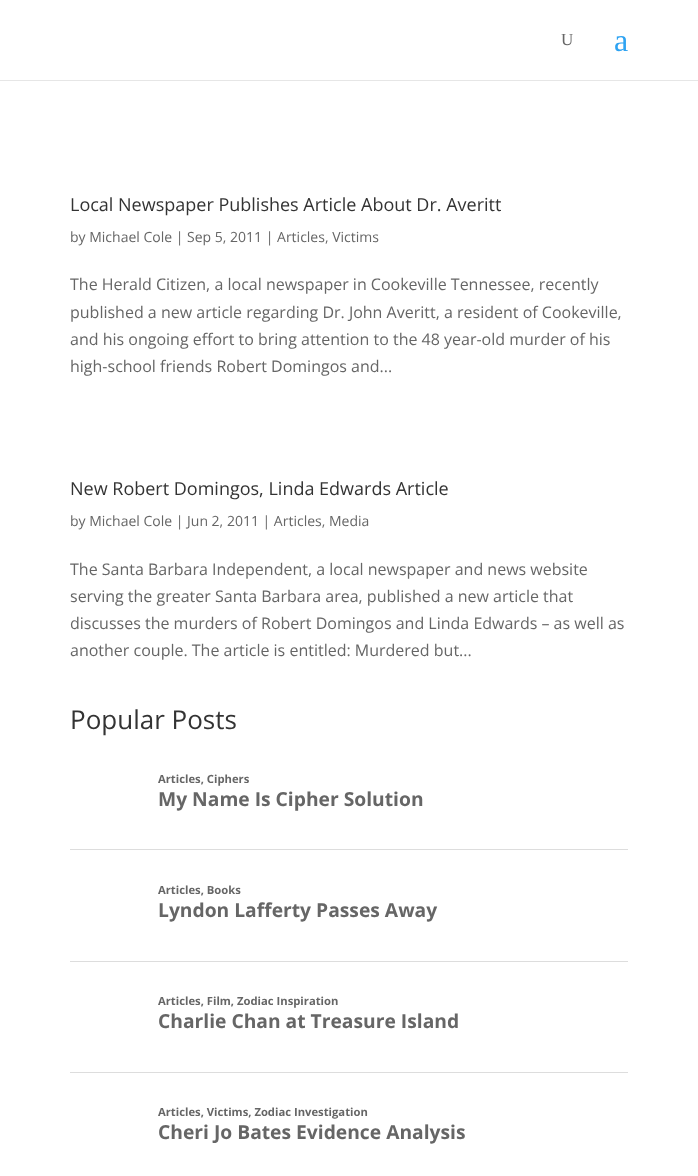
<?xml version="1.0" encoding="UTF-8"?>
<svg xmlns="http://www.w3.org/2000/svg" xmlns:xlink="http://www.w3.org/1999/xlink" width="698" height="1176">
  <rect width="100%" height="100%" fill="#ffffff" />
  <rect y="80" width="698" height="1" fill="#e6e6e6" />
  <rect x="70" y="849" width="558" height="1" fill="#dddddd" />
  <rect x="70" y="961" width="558" height="1" fill="#dddddd" />
  <rect x="70" y="1072" width="558" height="1" fill="#dddddd" />
  <text x="561" y="45" style="font-family: Liberation Serif; font-size: 17px; fill: #666666">U</text>
  <text x="614" y="51" style="font-family: Liberation Serif; font-size: 32px; fill: #2ea3f2">a</text>
  <text x="70" y="211" style="font-family: Open Sans; font-size: 18px; fill: #333333">Local Newspaper Publishes Article About Dr. Averitt</text>
  <text x="70" y="242" style="font-family: Open Sans; font-size: 14px; fill: #666666">by Michael Cole | Sep 5, 2011 | Articles, Victims</text>
  <text x="70" y="290" style="font-family: Open Sans; font-size: 16px; fill: #666666">The Herald Citizen, a local newspaper in Cookeville Tennessee, recently</text>
  <text x="70" y="318" style="font-family: Open Sans; font-size: 16px; fill: #666666">published a new article regarding Dr. John Averitt, a resident of Cookeville,</text>
  <text x="70" y="345" style="font-family: Open Sans; font-size: 16px; fill: #666666">and his ongoing effort to bring attention to the 48 year-old murder of his</text>
  <text x="70" y="372" style="font-family: Open Sans; font-size: 16px; fill: #666666">high-school friends Robert Domingos and...</text>
  <text x="70" y="495" style="font-family: Open Sans; font-size: 18px; fill: #333333">New Robert Domingos, Linda Edwards Article</text>
  <text x="70" y="526" style="font-family: Open Sans; font-size: 14px; fill: #666666">by Michael Cole | Jun 2, 2011 | Articles, Media</text>
  <text x="70" y="575" style="font-family: Open Sans; font-size: 16px; fill: #666666">The Santa Barbara Independent, a local newspaper and news website</text>
  <text x="70" y="602" style="font-family: Open Sans; font-size: 16px; fill: #666666">serving the greater Santa Barbara area, published a new article that</text>
  <text x="70" y="629" style="font-family: Open Sans; font-size: 16px; fill: #666666">discusses the murders of Robert Domingos and Linda Edwards – as well as</text>
  <text x="70" y="656" style="font-family: Open Sans; font-size: 16px; fill: #666666">another couple. The article is entitled: Murdered but...</text>
  <text x="70" y="729" style="font-family: Open Sans; font-size: 26px; fill: #333333">Popular Posts</text>
  <text x="158" y="783" style="font-family: Open Sans; font-size: 11.25px; font-weight: bold; fill: #666666">Articles, Ciphers</text>
  <text x="158" y="806" style="font-family: Open Sans; font-size: 19.25px; font-weight: bold; fill: #666666">My Name Is Cipher Solution</text>
  <text x="158" y="894" style="font-family: Open Sans; font-size: 11.25px; font-weight: bold; fill: #666666">Articles, Books</text>
  <text x="158" y="917" style="font-family: Open Sans; font-size: 19.25px; font-weight: bold; fill: #666666">Lyndon Lafferty Passes Away</text>
  <text x="158" y="1005" style="font-family: Open Sans; font-size: 11.25px; font-weight: bold; fill: #666666">Articles, Film, Zodiac Inspiration</text>
  <text x="158" y="1028" style="font-family: Open Sans; font-size: 19.25px; font-weight: bold; fill: #666666">Charlie Chan at Treasure Island</text>
  <text x="158" y="1116" style="font-family: Open Sans; font-size: 11.25px; font-weight: bold; fill: #666666">Articles, Victims, Zodiac Investigation</text>
  <text x="158" y="1139" style="font-family: Open Sans; font-size: 19.25px; font-weight: bold; fill: #666666">Cheri Jo Bates Evidence Analysis</text>
</svg>
